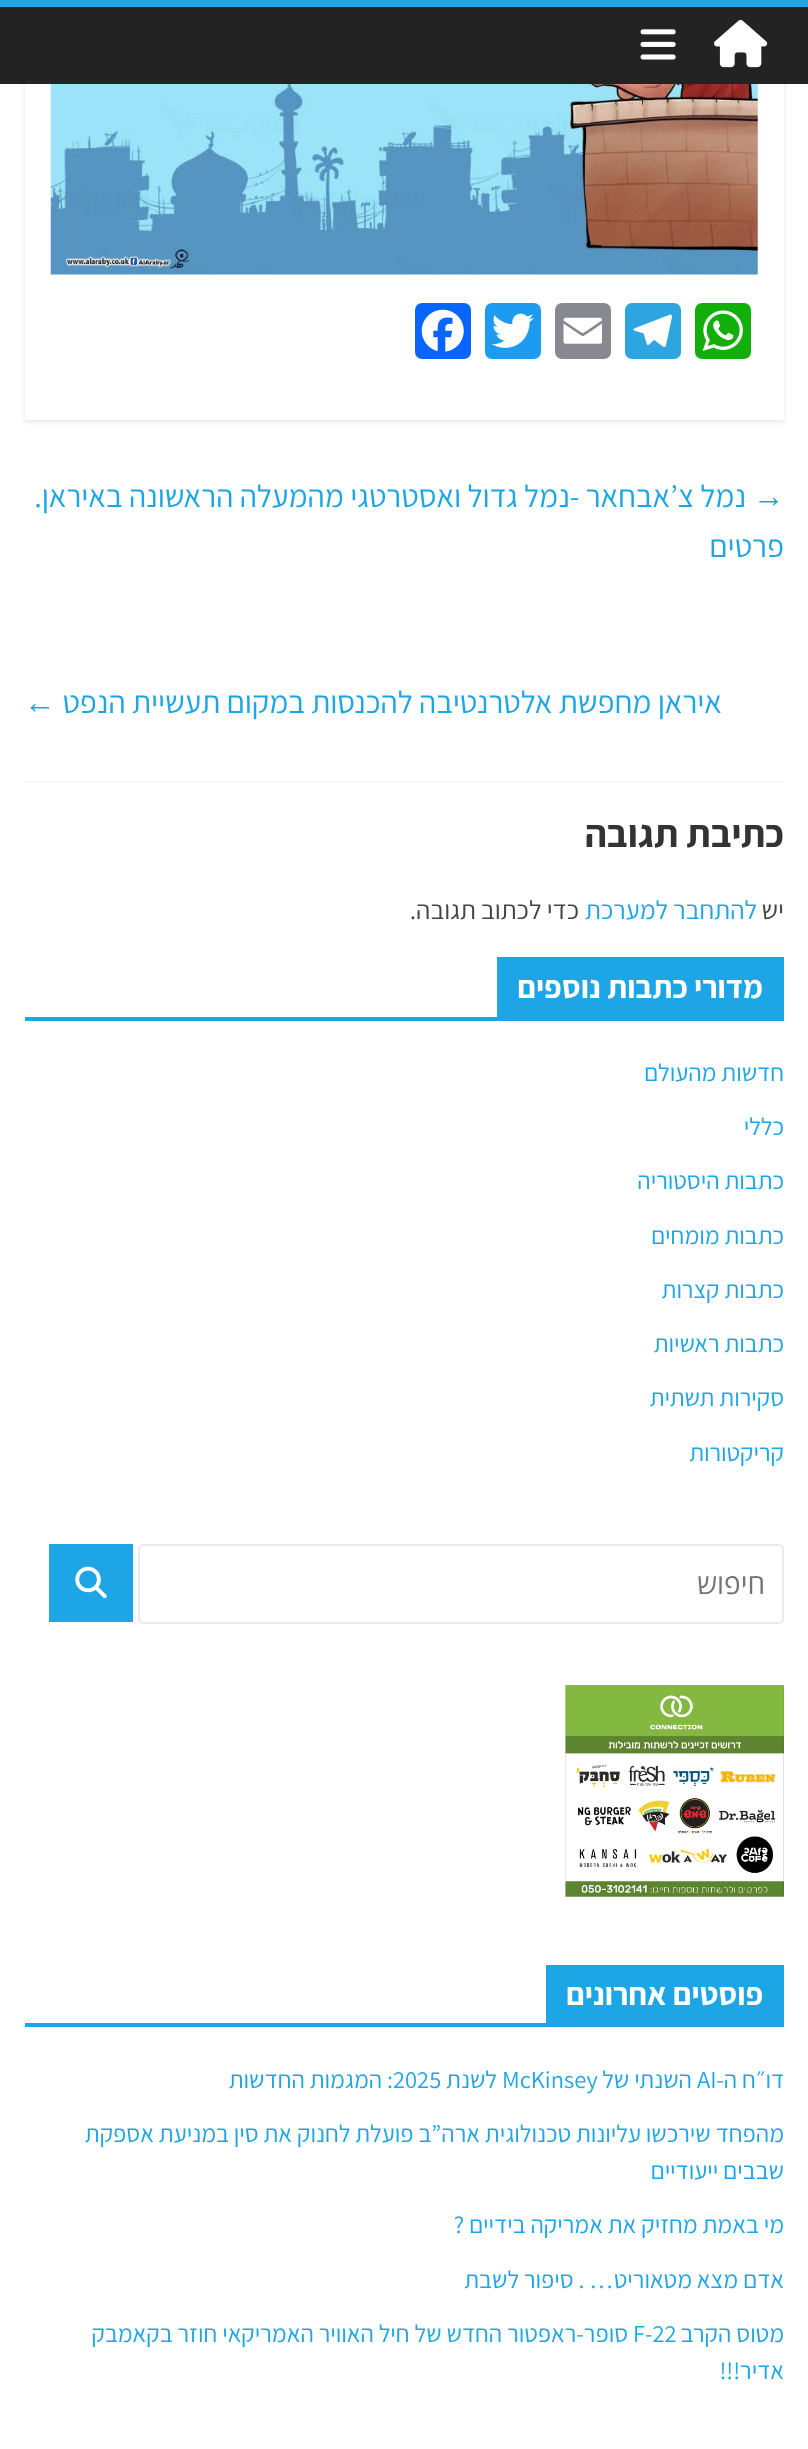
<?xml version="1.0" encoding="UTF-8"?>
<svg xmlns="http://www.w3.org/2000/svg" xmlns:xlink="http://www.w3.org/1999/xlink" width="808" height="2449">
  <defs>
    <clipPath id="clip1"><path d="M 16 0 h 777 v 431 h -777 z m 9 -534 h 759 v 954 h -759 z" clip-rule="evenodd" /></clipPath>
  </defs>
  <rect width="100%" height="100%" fill="#ffffff" />
  <g clip-path="url(#clip1)">
    <rect x="25" y="-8" width="759" height="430" fill="#000000" fill-opacity="0.1" filter="blur(2.5px)" />
  </g>
  <rect y="7" width="808" height="77" fill="#232323" />
  <rect width="808" height="7" fill="#1ea5e6" />
  <image x="714" y="19" width="54" height="49" xlink:href="image1.png" />
  <image x="640" y="29" width="36" height="31" xlink:href="image2.png" />
  <image x="50" y="84" width="708" height="191" xlink:href="image3.png" />
  <rect x="695" y="303" width="56" height="56" rx="7" fill="#12af0a" />
  <image x="702" y="310" width="41" height="41" xlink:href="image4.png" />
  <rect x="625" y="303" width="56" height="56" rx="7" fill="#2ca5e0" />
  <image x="633" y="314" width="39" height="33" xlink:href="image5.png" />
  <rect x="555" y="303" width="56" height="56" rx="7" fill="#888990" />
  <image x="563" y="317" width="39" height="27" xlink:href="image6.png" />
  <rect x="485" y="303" width="56" height="56" rx="7" fill="#1d9bf0" />
  <image x="492" y="313" width="42" height="35" xlink:href="image7.png" />
  <rect x="415" y="303" width="56" height="56" rx="7" fill="#0866ff" />
  <image x="421" y="309" width="43" height="43" xlink:href="image8.png" />
  <rect x="25" y="781" width="759" height="2" fill="#f8f8f8" />
  <rect x="25" y="1017" width="759" height="4" fill="#1ea5e6" />
  <rect x="497" y="957" width="287" height="60" fill="#1ea5e6" />
  <rect x="139" y="1545" width="644" height="78" rx="4" fill="none" stroke="#eaeaea" stroke-width="2" />
  <rect x="49" y="1544" width="84" height="78" fill="#1ea5e6" />
  <image x="75" y="1566" width="32" height="33" xlink:href="image9.png" />
  <image x="565" y="1685" width="219" height="212" xlink:href="image10.png" />
  <rect x="25" y="2023" width="759" height="4" fill="#1ea5e6" />
  <rect x="546" y="1965" width="238" height="58" fill="#1ea5e6" />
  <text x="753" y="507" style="font-family: Liberation Serif; font-size: 31.5px; fill: #1ea5e6">→</text>
  <text x="746" y="507" style="font-family: Assistant; font-size: 31.5px; direction: rtl; fill: #1ea5e6">נמל צ’אבחאר -נמל גדול ואסטרטגי מהמעלה הראשונה באיראן.</text>
  <text x="784" y="557" style="font-family: Assistant; font-size: 31.5px; direction: rtl; fill: #1ea5e6">פרטים</text>
  <text x="722" y="713" style="font-family: Assistant; font-size: 31.5px; direction: rtl; fill: #1ea5e6">איראן מחפשת אלטרנטיבה להכנסות במקום תעשיית הנפט</text>
  <text x="24" y="713" style="font-family: Liberation Serif; font-size: 31.5px; fill: #1ea5e6">←</text>
  <text x="784" y="847" style="font-family: Assistant; font-size: 38.5px; font-weight: bold; direction: rtl; fill: #333333">כתיבת תגובה</text>
  <text x="784" y="919" style="font-family: Assistant; font-size: 26.25px; direction: rtl; fill: #444444">יש</text>
  <text x="757" y="919" style="font-family: Assistant; font-size: 26.25px; direction: rtl; fill: #1ea5e6">להתחבר למערכת</text>
  <text x="579" y="919" style="font-family: Assistant; font-size: 26.25px; direction: rtl; fill: #444444">כדי לכתוב תגובה.</text>
  <text x="763" y="998" style="font-family: Assistant; font-size: 31.5px; font-weight: bold; direction: rtl; fill: #ffffff">מדורי כתבות נוספים</text>
  <text x="784" y="1081" style="font-family: Assistant; font-size: 24.5px; direction: rtl; fill: #1ea5e6">חדשות מהעולם</text>
  <text x="784" y="1135" style="font-family: Assistant; font-size: 24.5px; direction: rtl; fill: #1ea5e6">כללי</text>
  <text x="784" y="1189" style="font-family: Assistant; font-size: 24.5px; direction: rtl; fill: #1ea5e6">כתבות היסטוריה</text>
  <text x="784" y="1244" style="font-family: Assistant; font-size: 24.5px; direction: rtl; fill: #1ea5e6">כתבות מומחים</text>
  <text x="784" y="1298" style="font-family: Assistant; font-size: 24.5px; direction: rtl; fill: #1ea5e6">כתבות קצרות</text>
  <text x="784" y="1352" style="font-family: Assistant; font-size: 24.5px; direction: rtl; fill: #1ea5e6">כתבות ראשיות</text>
  <text x="784" y="1406" style="font-family: Assistant; font-size: 24.5px; direction: rtl; fill: #1ea5e6">סקירות תשתית</text>
  <text x="784" y="1461" style="font-family: Assistant; font-size: 24.5px; direction: rtl; fill: #1ea5e6">קריקטורות</text>
  <text x="765" y="1594" style="font-family: Open Sans; font-size: 28px; direction: rtl; fill: #757575">חיפוש</text>
  <text x="763" y="2005" style="font-family: Assistant; font-size: 31.5px; font-weight: bold; direction: rtl; fill: #ffffff">פוסטים אחרונים</text>
  <text x="784" y="2088" style="font-family: Assistant; font-size: 24.5px; direction: rtl; fill: #1ea5e6">דו״ח ה-</text>
  <text x="697" y="2088" style="font-family: Assistant; font-size: 24.5px; fill: #1ea5e6">AI</text>
  <text x="692" y="2088" style="font-family: Assistant; font-size: 24.5px; direction: rtl; fill: #1ea5e6">השנתי של</text>
  <text x="502" y="2088" style="font-family: Assistant; font-size: 24.5px; fill: #1ea5e6">McKinsey</text>
  <text x="497" y="2088" style="font-family: Assistant; font-size: 24.5px; direction: rtl; fill: #1ea5e6">לשנת</text>
  <text x="393" y="2088" style="font-family: Assistant; font-size: 24.5px; fill: #1ea5e6">2025</text>
  <text x="393" y="2088" style="font-family: Assistant; font-size: 24.5px; direction: rtl; fill: #1ea5e6">: המגמות החדשות</text>
  <text x="784" y="2142" style="font-family: Assistant; font-size: 24.5px; direction: rtl; fill: #1ea5e6">מהפחד שירכשו עליונות טכנולוגית ארה”ב פועלת לחנוק את סין במניעת אספקת</text>
  <text x="784" y="2179" style="font-family: Assistant; font-size: 24.5px; direction: rtl; fill: #1ea5e6">שבבים ייעודיים</text>
  <text x="784" y="2233" style="font-family: Assistant; font-size: 24.5px; direction: rtl; fill: #1ea5e6">מי באמת מחזיק את אמריקה בידיים ?</text>
  <text x="784" y="2288" style="font-family: Assistant; font-size: 24.5px; direction: rtl; fill: #1ea5e6">אדם מצא מטאוריט… . סיפור לשבת</text>
  <text x="784" y="2342" style="font-family: Assistant; font-size: 24.5px; direction: rtl; fill: #1ea5e6">מטוס הקרב</text>
  <text x="633" y="2342" style="font-family: Assistant; font-size: 24.5px; fill: #1ea5e6">F-22</text>
  <text x="628" y="2342" style="font-family: Assistant; font-size: 24.5px; direction: rtl; fill: #1ea5e6">סופר-ראפטור החדש של חיל האוויר האמריקאי חוזר בקאמבק</text>
  <text x="784" y="2379" style="font-family: Assistant; font-size: 24.5px; direction: rtl; fill: #1ea5e6">אדיר!!!</text>
</svg>
